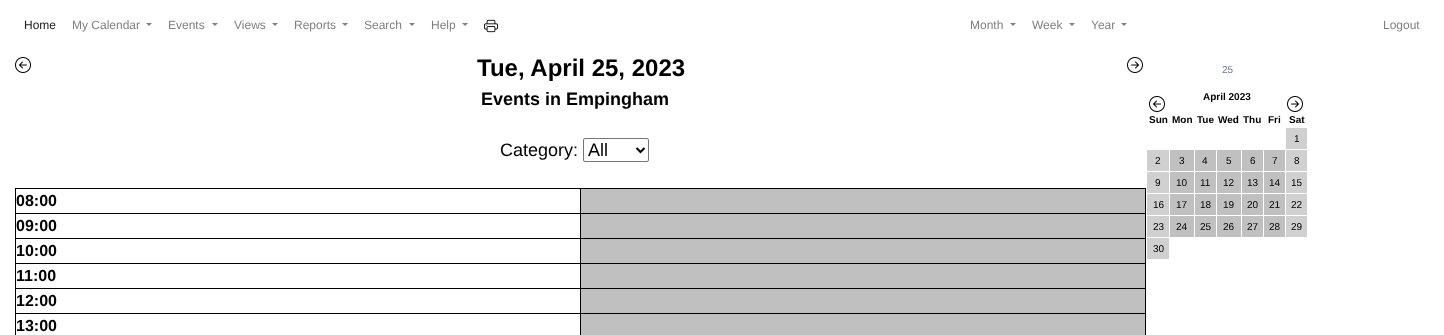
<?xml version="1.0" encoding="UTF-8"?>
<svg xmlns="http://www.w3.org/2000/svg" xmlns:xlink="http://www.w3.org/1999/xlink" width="1444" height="335">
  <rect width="100%" height="100%" fill="#ffffff" />
  <path d="M 146 23 h 6 l -3 3 z" fill="#808080" />
  <path d="M 212 23 h 6 l -3 3 z" fill="#808080" />
  <path d="M 272 23 h 6 l -3 3 z" fill="#808080" />
  <path d="M 342 23 h 6 l -3 3 z" fill="#808080" />
  <path d="M 409 23 h 6 l -3 3 z" fill="#808080" />
  <path d="M 462 23 h 6 l -3 3 z" fill="#808080" />
  <image x="484" y="19" width="14" height="14" xlink:href="image1.png" />
  <path d="M 1010 23 h 6 l -3 3 z" fill="#808080" />
  <path d="M 1069 23 h 6 l -3 3 z" fill="#808080" />
  <path d="M 1121 23 h 6 l -3 3 z" fill="#808080" />
  <rect x="1145" y="188" width="1" height="147" fill="#000000" />
  <rect x="580" y="188" width="566" height="1" fill="#000000" />
  <rect x="580" y="213" width="566" height="1" fill="#000000" />
  <rect x="580" y="238" width="566" height="1" fill="#000000" />
  <rect x="580" y="263" width="566" height="1" fill="#000000" />
  <rect x="580" y="288" width="566" height="1" fill="#000000" />
  <rect x="580" y="313" width="566" height="1" fill="#000000" />
  <rect x="580" y="313" width="1" height="22" fill="#000000" />
  <rect x="15" y="313" width="566" height="1" fill="#000000" />
  <rect x="580" y="288" width="1" height="26" fill="#000000" />
  <rect x="15" y="288" width="566" height="1" fill="#000000" />
  <rect x="580" y="263" width="1" height="26" fill="#000000" />
  <rect x="15" y="263" width="566" height="1" fill="#000000" />
  <rect x="580" y="238" width="1" height="26" fill="#000000" />
  <rect x="15" y="238" width="566" height="1" fill="#000000" />
  <rect x="580" y="213" width="1" height="26" fill="#000000" />
  <rect x="15" y="213" width="566" height="1" fill="#000000" />
  <rect x="580" y="188" width="1" height="26" fill="#000000" />
  <rect x="15" y="188" width="566" height="1" fill="#000000" />
  <rect x="15" y="313" width="1" height="22" fill="#000000" />
  <rect x="15" y="288" width="1" height="26" fill="#000000" />
  <rect x="15" y="263" width="1" height="26" fill="#000000" />
  <rect x="15" y="238" width="1" height="26" fill="#000000" />
  <rect x="15" y="213" width="1" height="26" fill="#000000" />
  <rect x="15" y="188" width="1" height="26" fill="#000000" />
  <rect x="581" y="189" width="564" height="24" fill="#c0c0c0" />
  <rect x="581" y="214" width="564" height="24" fill="#c0c0c0" />
  <rect x="581" y="239" width="564" height="24" fill="#c0c0c0" />
  <rect x="581" y="264" width="564" height="24" fill="#c0c0c0" />
  <rect x="581" y="289" width="564" height="24" fill="#c0c0c0" />
  <rect x="581" y="314" width="564" height="21" fill="#c0c0c0" />
  <image x="15" y="57" width="16" height="16" xlink:href="image2.png" />
  <rect x="583.5" y="138.5" width="65" height="23" rx="1.5" fill="none" stroke="#767676" />
  <path d="M 636.5 148 l 4 4 l 4 -4" fill="none" stroke="#000000" stroke-width="2" />
  <image x="1127" y="57" width="16" height="16" xlink:href="image3.png" />
  <image x="1149" y="96" width="16" height="16" xlink:href="image2.png" />
  <image x="1287" y="96" width="16" height="16" xlink:href="image3.png" />
  <rect x="1286" y="128" width="21" height="21" fill="#d0d0d0" />
  <rect x="1147" y="150" width="22" height="21" fill="#d0d0d0" />
  <rect x="1170" y="150" width="24" height="21" fill="#c0c0c0" />
  <rect x="1195" y="150" width="21" height="21" fill="#c0c0c0" />
  <rect x="1217" y="150" width="24" height="21" fill="#c0c0c0" />
  <rect x="1242" y="150" width="21" height="21" fill="#c0c0c0" />
  <rect x="1264" y="150" width="21" height="21" fill="#c0c0c0" />
  <rect x="1286" y="150" width="21" height="21" fill="#d0d0d0" />
  <rect x="1147" y="172" width="22" height="21" fill="#d0d0d0" />
  <rect x="1170" y="172" width="24" height="21" fill="#c0c0c0" />
  <rect x="1195" y="172" width="21" height="21" fill="#c0c0c0" />
  <rect x="1217" y="172" width="24" height="21" fill="#c0c0c0" />
  <rect x="1242" y="172" width="21" height="21" fill="#c0c0c0" />
  <rect x="1264" y="172" width="21" height="21" fill="#c0c0c0" />
  <rect x="1286" y="172" width="21" height="21" fill="#d0d0d0" />
  <rect x="1147" y="194" width="22" height="21" fill="#d0d0d0" />
  <rect x="1170" y="194" width="24" height="21" fill="#c0c0c0" />
  <rect x="1195" y="194" width="21" height="21" fill="#c0c0c0" />
  <rect x="1217" y="194" width="24" height="21" fill="#c0c0c0" />
  <rect x="1242" y="194" width="21" height="21" fill="#c0c0c0" />
  <rect x="1264" y="194" width="21" height="21" fill="#c0c0c0" />
  <rect x="1286" y="194" width="21" height="21" fill="#d0d0d0" />
  <rect x="1147" y="216" width="22" height="21" fill="#d0d0d0" />
  <rect x="1170" y="216" width="24" height="21" fill="#c0c0c0" />
  <rect x="1195" y="216" width="21" height="21" fill="#c0c0c0" />
  <rect x="1217" y="216" width="24" height="21" fill="#c0c0c0" />
  <rect x="1242" y="216" width="21" height="21" fill="#c0c0c0" />
  <rect x="1264" y="216" width="21" height="21" fill="#c0c0c0" />
  <rect x="1286" y="216" width="21" height="21" fill="#d0d0d0" />
  <rect x="1147" y="238" width="22" height="21" fill="#d0d0d0" />
  <text x="24" y="29" style="font-family: Liberation Sans; font-size: 12px; fill: #1a1a1a">Home</text>
  <text x="72" y="29" style="font-family: Liberation Sans; font-size: 12px; fill: #808080">My Calendar</text>
  <text x="168" y="29" style="font-family: Liberation Sans; font-size: 12px; fill: #808080">Events</text>
  <text x="234" y="29" style="font-family: Liberation Sans; font-size: 12px; fill: #808080">Views</text>
  <text x="294" y="29" style="font-family: Liberation Sans; font-size: 12px; fill: #808080">Reports</text>
  <text x="364" y="29" style="font-family: Liberation Sans; font-size: 12px; fill: #808080">Search</text>
  <text x="431" y="29" style="font-family: Liberation Sans; font-size: 12px; fill: #808080">Help</text>
  <text x="970" y="29" style="font-family: Liberation Sans; font-size: 12px; fill: #808080">Month</text>
  <text x="1032" y="29" style="font-family: Liberation Sans; font-size: 12px; fill: #808080">Week</text>
  <text x="1091" y="29" style="font-family: Liberation Sans; font-size: 12px; fill: #808080">Year</text>
  <text x="1383" y="29" style="font-family: Liberation Sans; font-size: 12px; fill: #808080">Logout</text>
  <text x="16" y="206" style="font-family: Liberation Sans; font-size: 16px; font-weight: bold; fill: #000000">08:00</text>
  <text x="16" y="231" style="font-family: Liberation Sans; font-size: 16px; font-weight: bold; fill: #000000">09:00</text>
  <text x="16" y="256" style="font-family: Liberation Sans; font-size: 16px; font-weight: bold; fill: #000000">10:00</text>
  <text x="16" y="281" style="font-family: Liberation Sans; font-size: 16px; font-weight: bold; fill: #000000">11:00</text>
  <text x="16" y="306" style="font-family: Liberation Sans; font-size: 16px; font-weight: bold; fill: #000000">12:00</text>
  <text x="16" y="331" style="font-family: Liberation Sans; font-size: 16px; font-weight: bold; fill: #000000">13:00</text>
  <text x="477" y="76" style="font-family: Liberation Sans; font-size: 24px; font-weight: bold; fill: #000000">Tue, April 25, 2023</text>
  <text x="481" y="105" style="font-family: Liberation Sans; font-size: 18px; font-weight: bold; fill: #000000">Events in Empingham</text>
  <text x="500" y="156" style="font-family: Liberation Sans; font-size: 18px; fill: #000000">Category:</text>
  <text x="588" y="156" style="font-family: Liberation Sans; font-size: 18px; fill: #000000">All</text>
  <text x="1222" y="73" style="font-family: Liberation Sans; font-size: 10px; fill: #6c757d">25</text>
  <text x="1203" y="100" style="font-family: Liberation Sans; font-size: 10px; font-weight: bold; fill: #000000">April 2023</text>
  <text x="1149" y="123" style="font-family: Liberation Sans; font-size: 10px; font-weight: bold; fill: #000000">Sun</text>
  <text x="1172" y="123" style="font-family: Liberation Sans; font-size: 10px; font-weight: bold; fill: #000000">Mon</text>
  <text x="1197" y="123" style="font-family: Liberation Sans; font-size: 10px; font-weight: bold; fill: #000000">Tue</text>
  <text x="1218" y="123" style="font-family: Liberation Sans; font-size: 10px; font-weight: bold; fill: #000000">Wed</text>
  <text x="1243" y="123" style="font-family: Liberation Sans; font-size: 10px; font-weight: bold; fill: #000000">Thu</text>
  <text x="1268" y="123" style="font-family: Liberation Sans; font-size: 10px; font-weight: bold; fill: #000000">Fri</text>
  <text x="1289" y="123" style="font-family: Liberation Sans; font-size: 10px; font-weight: bold; fill: #000000">Sat</text>
  <text x="1294" y="142" style="font-family: Liberation Sans; font-size: 10px; fill: #000000">1</text>
  <text x="1155" y="164" style="font-family: Liberation Sans; font-size: 10px; fill: #000000">2</text>
  <text x="1179" y="164" style="font-family: Liberation Sans; font-size: 10px; fill: #000000">3</text>
  <text x="1202" y="164" style="font-family: Liberation Sans; font-size: 10px; fill: #000000">4</text>
  <text x="1226" y="164" style="font-family: Liberation Sans; font-size: 10px; fill: #000000">5</text>
  <text x="1250" y="164" style="font-family: Liberation Sans; font-size: 10px; fill: #000000">6</text>
  <text x="1272" y="164" style="font-family: Liberation Sans; font-size: 10px; fill: #000000">7</text>
  <text x="1294" y="164" style="font-family: Liberation Sans; font-size: 10px; fill: #000000">8</text>
  <text x="1155" y="186" style="font-family: Liberation Sans; font-size: 10px; fill: #000000">9</text>
  <text x="1176" y="186" style="font-family: Liberation Sans; font-size: 10px; fill: #000000">10</text>
  <text x="1200" y="186" style="font-family: Liberation Sans; font-size: 10px; fill: #000000">11</text>
  <text x="1223" y="186" style="font-family: Liberation Sans; font-size: 10px; fill: #000000">12</text>
  <text x="1247" y="186" style="font-family: Liberation Sans; font-size: 10px; fill: #000000">13</text>
  <text x="1269" y="186" style="font-family: Liberation Sans; font-size: 10px; fill: #000000">14</text>
  <text x="1291" y="186" style="font-family: Liberation Sans; font-size: 10px; fill: #000000">15</text>
  <text x="1153" y="208" style="font-family: Liberation Sans; font-size: 10px; fill: #000000">16</text>
  <text x="1176" y="208" style="font-family: Liberation Sans; font-size: 10px; fill: #000000">17</text>
  <text x="1200" y="208" style="font-family: Liberation Sans; font-size: 10px; fill: #000000">18</text>
  <text x="1223" y="208" style="font-family: Liberation Sans; font-size: 10px; fill: #000000">19</text>
  <text x="1247" y="208" style="font-family: Liberation Sans; font-size: 10px; fill: #000000">20</text>
  <text x="1269" y="208" style="font-family: Liberation Sans; font-size: 10px; fill: #000000">21</text>
  <text x="1291" y="208" style="font-family: Liberation Sans; font-size: 10px; fill: #000000">22</text>
  <text x="1153" y="230" style="font-family: Liberation Sans; font-size: 10px; fill: #000000">23</text>
  <text x="1176" y="230" style="font-family: Liberation Sans; font-size: 10px; fill: #000000">24</text>
  <text x="1200" y="230" style="font-family: Liberation Sans; font-size: 10px; fill: #000000">25</text>
  <text x="1223" y="230" style="font-family: Liberation Sans; font-size: 10px; fill: #000000">26</text>
  <text x="1247" y="230" style="font-family: Liberation Sans; font-size: 10px; fill: #000000">27</text>
  <text x="1269" y="230" style="font-family: Liberation Sans; font-size: 10px; fill: #000000">28</text>
  <text x="1291" y="230" style="font-family: Liberation Sans; font-size: 10px; fill: #000000">29</text>
  <text x="1153" y="252" style="font-family: Liberation Sans; font-size: 10px; fill: #000000">30</text>
</svg>
